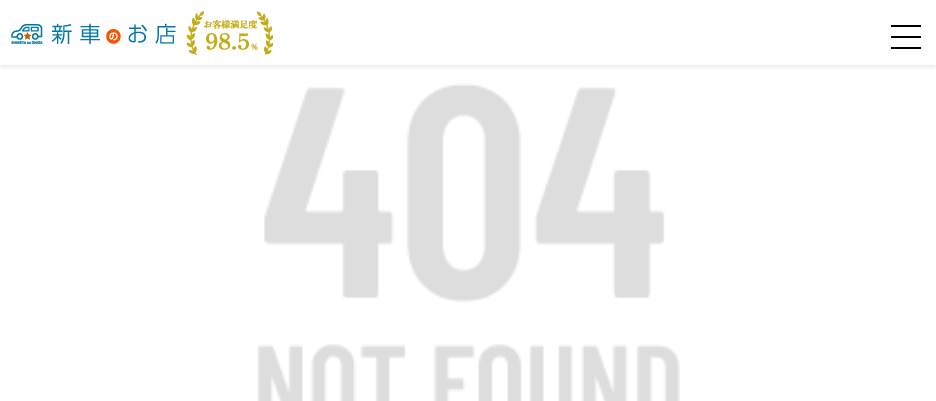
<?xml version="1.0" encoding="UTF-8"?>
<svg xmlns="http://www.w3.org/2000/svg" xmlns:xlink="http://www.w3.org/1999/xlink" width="936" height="401">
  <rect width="100%" height="100%" fill="#ffffff" />
  <rect y="3" width="936" height="65" fill="#eeeeee" filter="blur(1.5px)" />
  <rect y="1" width="936" height="64" fill="#ffffff" />
  <image x="11" y="11" width="262" height="44" xlink:href="image1.png" />
  <rect x="891" y="25" width="30" height="2" fill="#000000" />
  <rect x="891" y="36" width="30" height="2" fill="#000000" />
  <rect x="891" y="47" width="30" height="2" fill="#000000" />
  <image x="257" y="83" width="423" height="318" xlink:href="image2.png" />
</svg>
